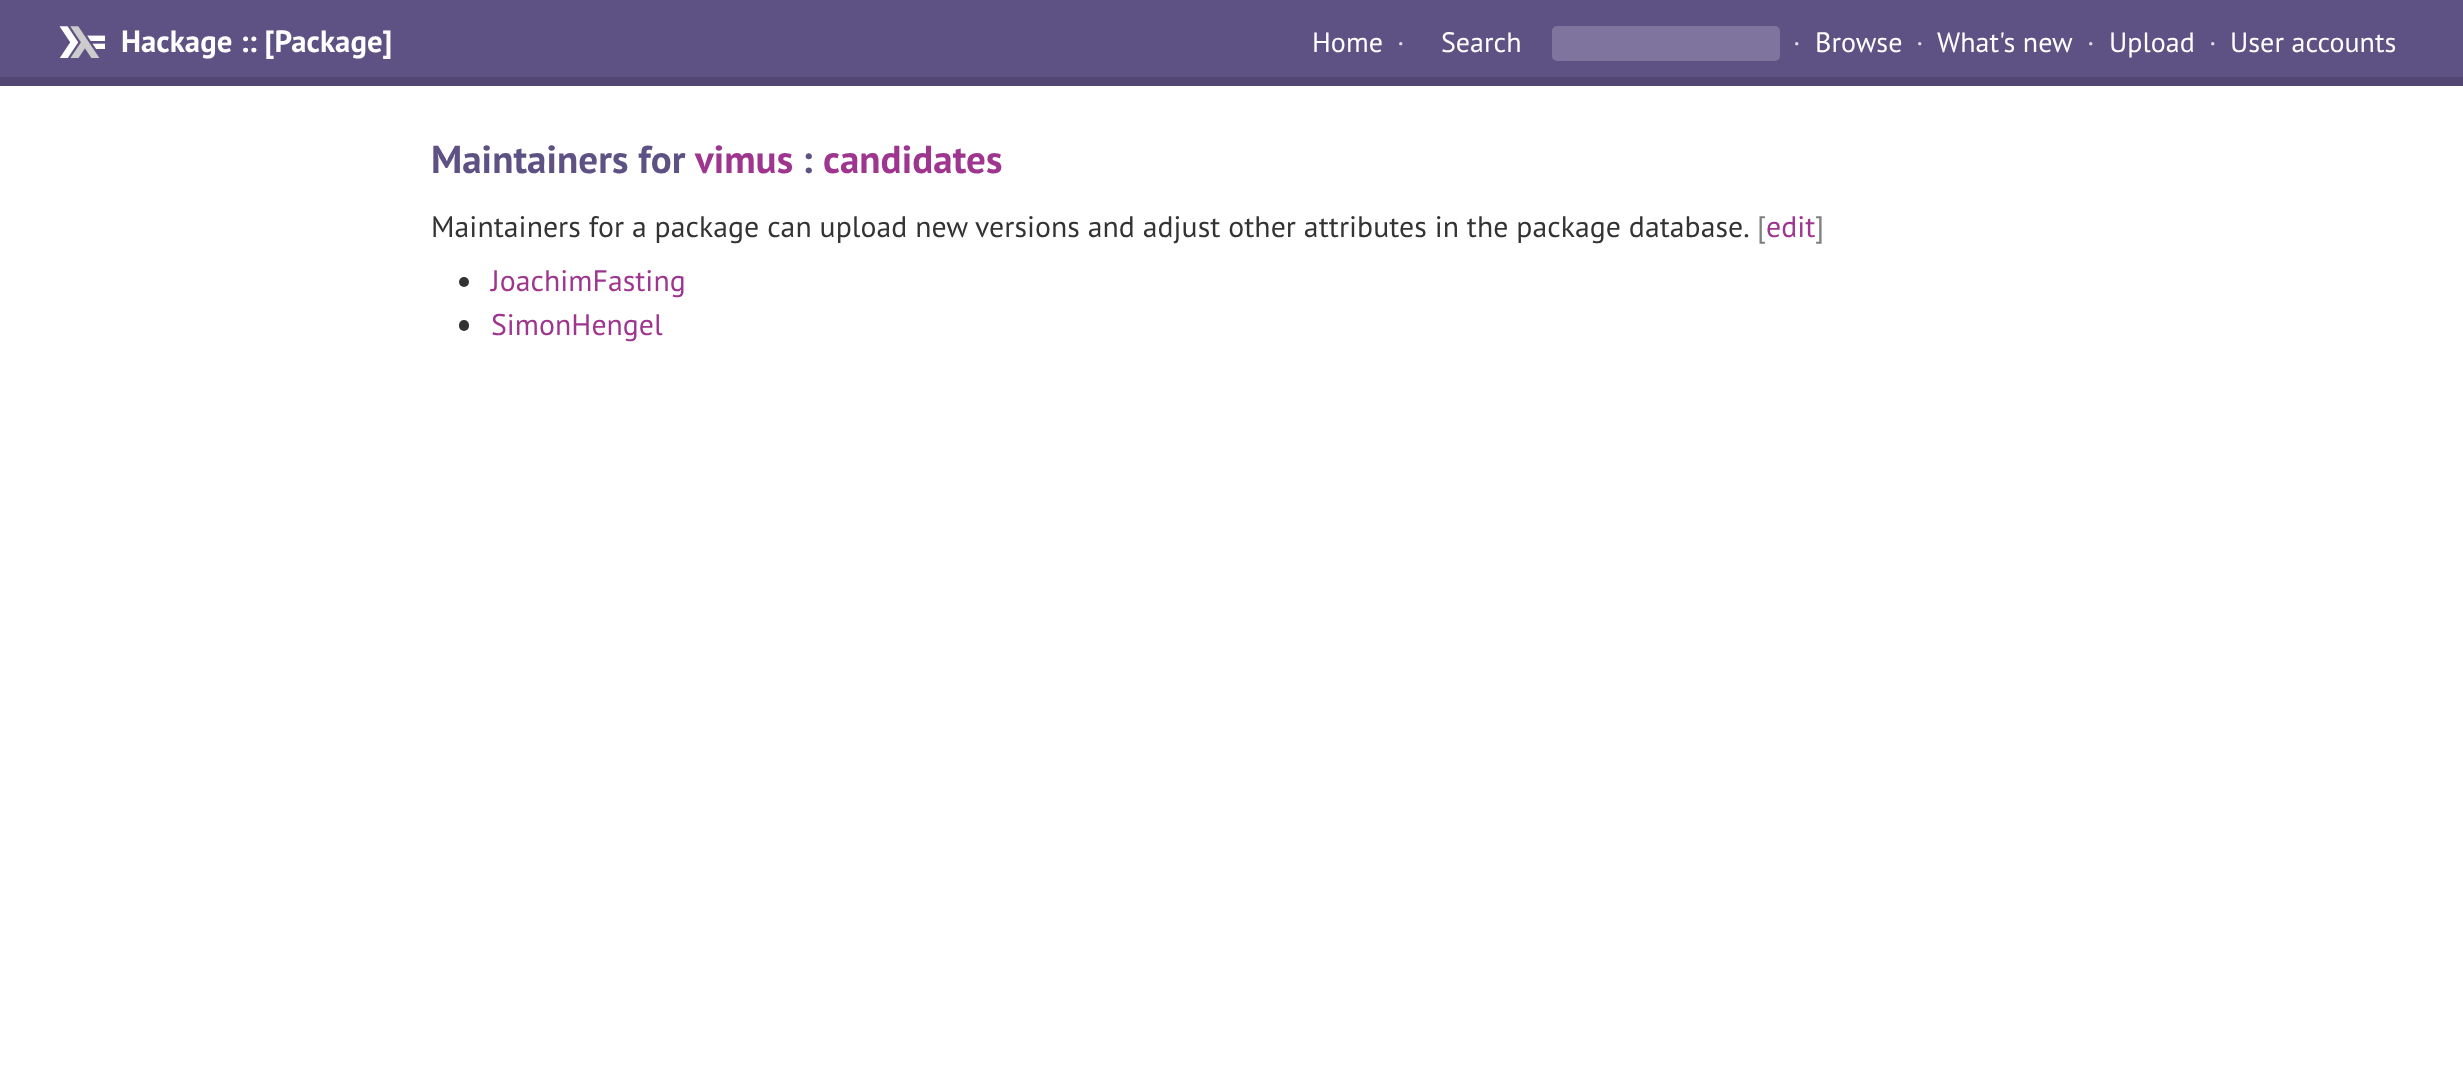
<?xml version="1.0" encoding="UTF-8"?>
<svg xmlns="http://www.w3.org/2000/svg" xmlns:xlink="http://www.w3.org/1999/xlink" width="2463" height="1086">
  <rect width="100%" height="100%" fill="#ffffff" />
  <rect width="2463" height="77" fill="#5e5184" />
  <rect y="77" width="2463" height="9" fill="#524673" />
  <image x="59" y="26" width="46" height="32" xlink:href="image1.png" />
  <rect x="1552" y="26" width="228" height="35" rx="5" fill="#7e749d" />
  <circle cx="464" cy="282" r="5" fill="#333333" />
  <rect x="459" y="320" width="10" height="11" rx="5" fill="#333333" />
  <text x="121" y="52" style="font-family: PT Sans; font-size: 30.75px; font-weight: bold; letter-spacing: 0.04px; fill: #ffffff">Hackage :: [Package]</text>
  <text x="1312" y="52" style="font-family: PT Sans; font-size: 28px; letter-spacing: 0.04px; fill: #ffffff">Home</text>
  <text x="1397" y="52" style="font-family: PT Sans; font-size: 28px; letter-spacing: 0.04px; fill: #dddddd">·</text>
  <text x="1441" y="52" style="font-family: PT Sans; font-size: 28px; fill: #ffffff">Search</text>
  <text x="1793" y="52" style="font-family: PT Sans; font-size: 28px; letter-spacing: 0.04px; fill: #dddddd">·</text>
  <text x="1815" y="52" style="font-family: PT Sans; font-size: 28px; letter-spacing: 0.04px; fill: #ffffff">Browse</text>
  <text x="1916" y="52" style="font-family: PT Sans; font-size: 28px; letter-spacing: 0.04px; fill: #dddddd">·</text>
  <text x="1937" y="52" style="font-family: PT Sans; font-size: 28px; letter-spacing: 0.04px; fill: #ffffff">What's new</text>
  <text x="2087" y="52" style="font-family: PT Sans; font-size: 28px; letter-spacing: 0.04px; fill: #dddddd">·</text>
  <text x="2109" y="52" style="font-family: PT Sans; font-size: 28px; letter-spacing: 0.04px; fill: #ffffff">Upload</text>
  <text x="2209" y="52" style="font-family: PT Sans; font-size: 28px; letter-spacing: 0.04px; fill: #dddddd">·</text>
  <text x="2230" y="52" style="font-family: PT Sans; font-size: 28px; letter-spacing: 0.04px; fill: #ffffff">User accounts</text>
  <text x="431" y="173" style="font-family: PT Sans; font-size: 39px; font-weight: bold; letter-spacing: 0.04px; fill: #5e5184">Maintainers for</text>
  <text x="695" y="173" style="font-family: PT Sans; font-size: 39px; font-weight: bold; letter-spacing: 0.04px; fill: #9e358f">vimus</text>
  <text x="802" y="173" style="font-family: PT Sans; font-size: 39px; font-weight: bold; letter-spacing: 0.04px; fill: #5e5184">:</text>
  <text x="823" y="173" style="font-family: PT Sans; font-size: 39px; font-weight: bold; letter-spacing: 0.04px; fill: #9e358f">candidates</text>
  <text x="431" y="237" word-spacing="-0.1" style="font-family: PT Sans; font-size: 29.75px; letter-spacing: 0.04px; fill: #333333">Maintainers for a package can upload new versions and adjust other attributes in the package database.</text>
  <text x="1757" y="237" style="font-family: PT Sans; font-size: 29.75px; letter-spacing: 0.04px; fill: #808080">[</text>
  <text x="1766" y="237" style="font-family: PT Sans; font-size: 29.75px; letter-spacing: 0.04px; fill: #9e358f">edit</text>
  <text x="1815" y="237" style="font-family: PT Sans; font-size: 29.75px; letter-spacing: 0.04px; fill: #808080">]</text>
  <text x="491" y="291" style="font-family: PT Sans; font-size: 29.75px; letter-spacing: 0.04px; fill: #9e358f">JoachimFasting</text>
  <text x="491" y="335" style="font-family: PT Sans; font-size: 29.75px; letter-spacing: 0.04px; fill: #9e358f">SimonHengel</text>
</svg>
